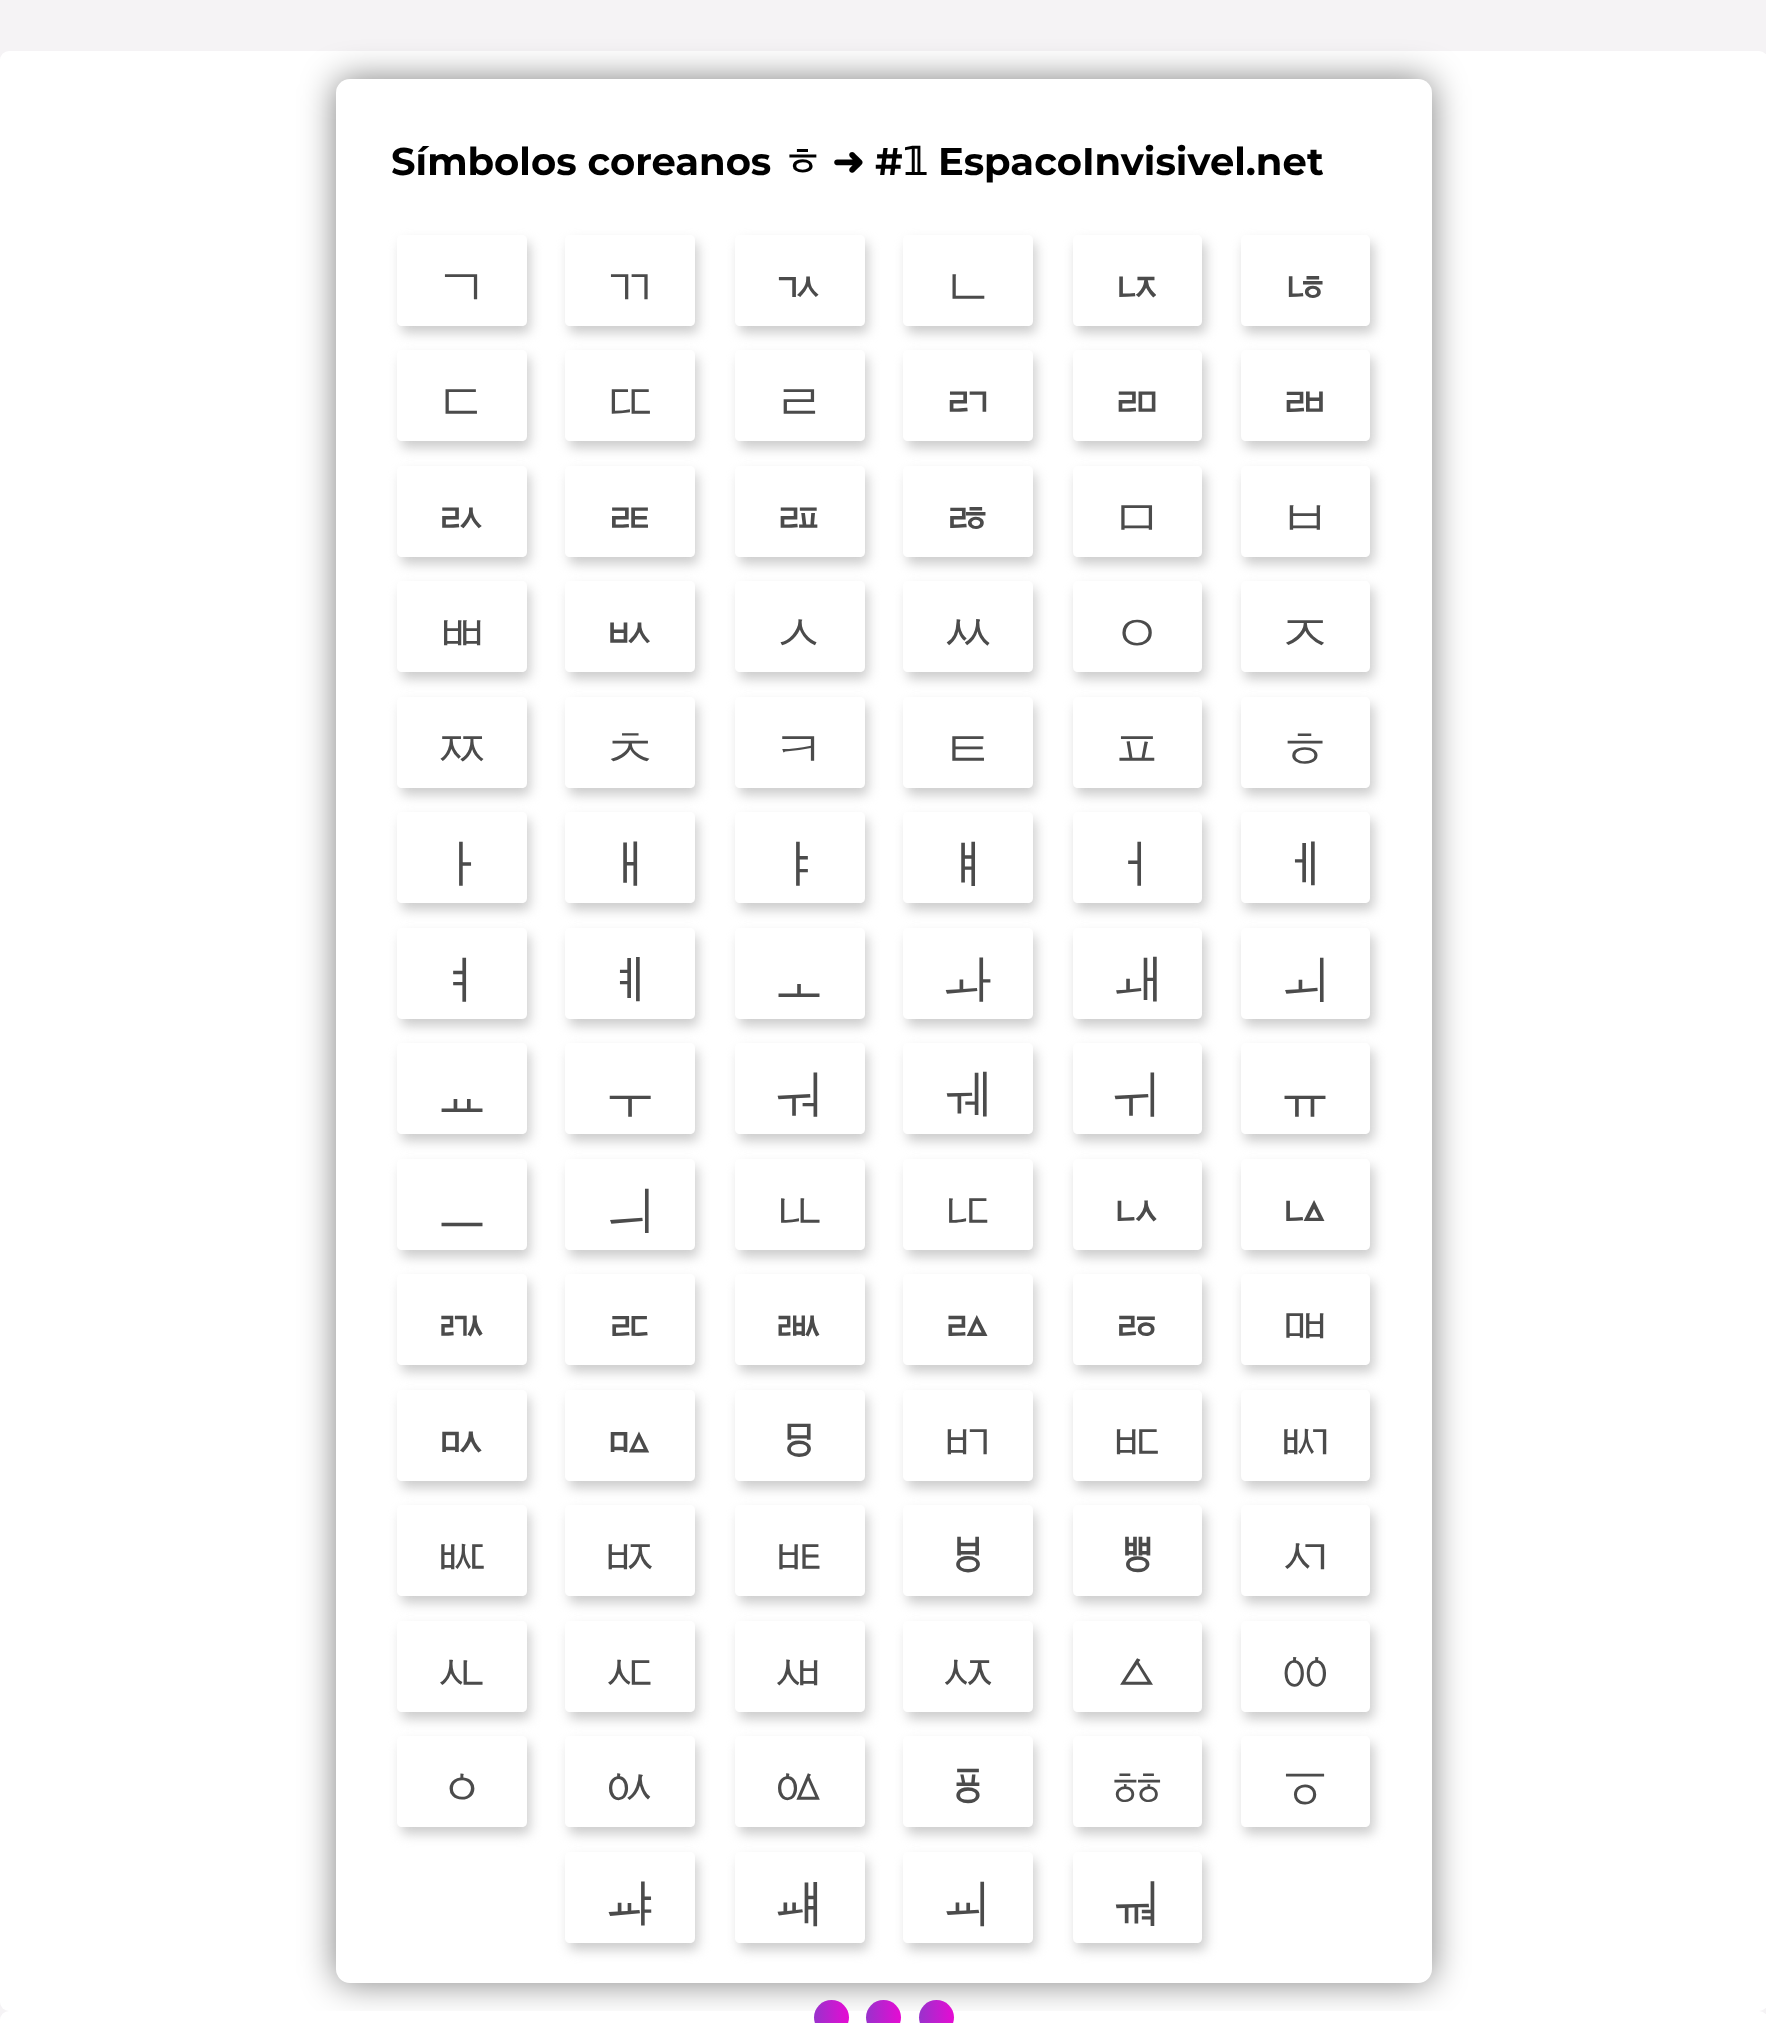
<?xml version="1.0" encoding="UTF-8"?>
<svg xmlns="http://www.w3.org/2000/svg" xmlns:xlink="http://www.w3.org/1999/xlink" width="1766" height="2023">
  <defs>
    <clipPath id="clip1"><path d="M 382 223 h 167 v 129 h -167 z m 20 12 h 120 c 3 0 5 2 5 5 v 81 c 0 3 -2 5 -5 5 h -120 c -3 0 -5 -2 -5 -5 v -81 c 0 -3 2 -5 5 -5 z" clip-rule="evenodd" /></clipPath>
    <clipPath id="clip2"><path d="M 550 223 h 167 v 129 h -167 z m 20 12 h 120 c 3 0 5 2 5 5 v 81 c 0 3 -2 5 -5 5 h -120 c -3 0 -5 -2 -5 -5 v -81 c 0 -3 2 -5 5 -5 z" clip-rule="evenodd" /></clipPath>
    <clipPath id="clip3"><path d="M 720 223 h 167 v 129 h -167 z m 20 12 h 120 c 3 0 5 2 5 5 v 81 c 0 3 -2 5 -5 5 h -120 c -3 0 -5 -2 -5 -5 v -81 c 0 -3 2 -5 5 -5 z" clip-rule="evenodd" /></clipPath>
    <clipPath id="clip4"><path d="M 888 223 h 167 v 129 h -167 z m 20 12 h 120 c 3 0 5 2 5 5 v 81 c 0 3 -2 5 -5 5 h -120 c -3 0 -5 -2 -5 -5 v -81 c 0 -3 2 -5 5 -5 z" clip-rule="evenodd" /></clipPath>
    <clipPath id="clip5"><path d="M 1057 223 h 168 v 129 h -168 z m 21 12 h 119 c 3 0 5 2 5 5 v 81 c 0 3 -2 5 -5 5 h -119 c -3 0 -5 -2 -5 -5 v -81 c 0 -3 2 -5 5 -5 z" clip-rule="evenodd" /></clipPath>
    <clipPath id="clip6"><path d="M 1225 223 h 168 v 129 h -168 z m 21 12 h 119 c 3 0 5 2 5 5 v 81 c 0 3 -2 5 -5 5 h -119 c -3 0 -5 -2 -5 -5 v -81 c 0 -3 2 -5 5 -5 z" clip-rule="evenodd" /></clipPath>
    <clipPath id="clip7"><path d="M 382 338 h 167 v 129 h -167 z m 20 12 h 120 c 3 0 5 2 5 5 v 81 c 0 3 -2 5 -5 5 h -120 c -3 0 -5 -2 -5 -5 v -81 c 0 -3 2 -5 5 -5 z" clip-rule="evenodd" /></clipPath>
    <clipPath id="clip8"><path d="M 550 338 h 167 v 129 h -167 z m 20 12 h 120 c 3 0 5 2 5 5 v 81 c 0 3 -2 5 -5 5 h -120 c -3 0 -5 -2 -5 -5 v -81 c 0 -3 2 -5 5 -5 z" clip-rule="evenodd" /></clipPath>
    <clipPath id="clip9"><path d="M 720 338 h 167 v 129 h -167 z m 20 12 h 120 c 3 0 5 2 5 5 v 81 c 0 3 -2 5 -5 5 h -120 c -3 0 -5 -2 -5 -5 v -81 c 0 -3 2 -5 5 -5 z" clip-rule="evenodd" /></clipPath>
    <clipPath id="clip10"><path d="M 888 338 h 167 v 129 h -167 z m 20 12 h 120 c 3 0 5 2 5 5 v 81 c 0 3 -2 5 -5 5 h -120 c -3 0 -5 -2 -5 -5 v -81 c 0 -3 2 -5 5 -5 z" clip-rule="evenodd" /></clipPath>
    <clipPath id="clip11"><path d="M 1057 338 h 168 v 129 h -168 z m 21 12 h 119 c 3 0 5 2 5 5 v 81 c 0 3 -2 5 -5 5 h -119 c -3 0 -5 -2 -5 -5 v -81 c 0 -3 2 -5 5 -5 z" clip-rule="evenodd" /></clipPath>
    <clipPath id="clip12"><path d="M 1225 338 h 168 v 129 h -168 z m 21 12 h 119 c 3 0 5 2 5 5 v 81 c 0 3 -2 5 -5 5 h -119 c -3 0 -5 -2 -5 -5 v -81 c 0 -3 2 -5 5 -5 z" clip-rule="evenodd" /></clipPath>
    <clipPath id="clip13"><path d="M 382 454 h 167 v 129 h -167 z m 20 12 h 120 c 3 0 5 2 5 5 v 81 c 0 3 -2 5 -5 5 h -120 c -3 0 -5 -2 -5 -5 v -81 c 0 -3 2 -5 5 -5 z" clip-rule="evenodd" /></clipPath>
    <clipPath id="clip14"><path d="M 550 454 h 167 v 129 h -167 z m 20 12 h 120 c 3 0 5 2 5 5 v 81 c 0 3 -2 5 -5 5 h -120 c -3 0 -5 -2 -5 -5 v -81 c 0 -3 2 -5 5 -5 z" clip-rule="evenodd" /></clipPath>
    <clipPath id="clip15"><path d="M 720 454 h 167 v 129 h -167 z m 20 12 h 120 c 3 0 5 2 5 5 v 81 c 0 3 -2 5 -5 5 h -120 c -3 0 -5 -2 -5 -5 v -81 c 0 -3 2 -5 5 -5 z" clip-rule="evenodd" /></clipPath>
    <clipPath id="clip16"><path d="M 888 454 h 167 v 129 h -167 z m 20 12 h 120 c 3 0 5 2 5 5 v 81 c 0 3 -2 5 -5 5 h -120 c -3 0 -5 -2 -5 -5 v -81 c 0 -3 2 -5 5 -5 z" clip-rule="evenodd" /></clipPath>
    <clipPath id="clip17"><path d="M 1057 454 h 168 v 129 h -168 z m 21 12 h 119 c 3 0 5 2 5 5 v 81 c 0 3 -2 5 -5 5 h -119 c -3 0 -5 -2 -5 -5 v -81 c 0 -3 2 -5 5 -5 z" clip-rule="evenodd" /></clipPath>
    <clipPath id="clip18"><path d="M 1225 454 h 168 v 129 h -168 z m 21 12 h 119 c 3 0 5 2 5 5 v 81 c 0 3 -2 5 -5 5 h -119 c -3 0 -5 -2 -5 -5 v -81 c 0 -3 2 -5 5 -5 z" clip-rule="evenodd" /></clipPath>
    <clipPath id="clip19"><path d="M 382 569 h 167 v 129 h -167 z m 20 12 h 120 c 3 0 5 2 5 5 v 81 c 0 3 -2 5 -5 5 h -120 c -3 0 -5 -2 -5 -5 v -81 c 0 -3 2 -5 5 -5 z" clip-rule="evenodd" /></clipPath>
    <clipPath id="clip20"><path d="M 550 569 h 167 v 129 h -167 z m 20 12 h 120 c 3 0 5 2 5 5 v 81 c 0 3 -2 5 -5 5 h -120 c -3 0 -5 -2 -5 -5 v -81 c 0 -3 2 -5 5 -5 z" clip-rule="evenodd" /></clipPath>
    <clipPath id="clip21"><path d="M 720 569 h 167 v 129 h -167 z m 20 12 h 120 c 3 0 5 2 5 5 v 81 c 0 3 -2 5 -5 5 h -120 c -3 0 -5 -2 -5 -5 v -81 c 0 -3 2 -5 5 -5 z" clip-rule="evenodd" /></clipPath>
    <clipPath id="clip22"><path d="M 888 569 h 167 v 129 h -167 z m 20 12 h 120 c 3 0 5 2 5 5 v 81 c 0 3 -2 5 -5 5 h -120 c -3 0 -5 -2 -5 -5 v -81 c 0 -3 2 -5 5 -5 z" clip-rule="evenodd" /></clipPath>
    <clipPath id="clip23"><path d="M 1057 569 h 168 v 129 h -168 z m 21 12 h 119 c 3 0 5 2 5 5 v 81 c 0 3 -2 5 -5 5 h -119 c -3 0 -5 -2 -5 -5 v -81 c 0 -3 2 -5 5 -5 z" clip-rule="evenodd" /></clipPath>
    <clipPath id="clip24"><path d="M 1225 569 h 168 v 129 h -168 z m 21 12 h 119 c 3 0 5 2 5 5 v 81 c 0 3 -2 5 -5 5 h -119 c -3 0 -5 -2 -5 -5 v -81 c 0 -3 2 -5 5 -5 z" clip-rule="evenodd" /></clipPath>
    <clipPath id="clip25"><path d="M 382 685 h 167 v 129 h -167 z m 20 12 h 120 c 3 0 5 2 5 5 v 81 c 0 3 -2 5 -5 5 h -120 c -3 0 -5 -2 -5 -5 v -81 c 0 -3 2 -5 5 -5 z" clip-rule="evenodd" /></clipPath>
    <clipPath id="clip26"><path d="M 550 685 h 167 v 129 h -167 z m 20 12 h 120 c 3 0 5 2 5 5 v 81 c 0 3 -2 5 -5 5 h -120 c -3 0 -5 -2 -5 -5 v -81 c 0 -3 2 -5 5 -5 z" clip-rule="evenodd" /></clipPath>
    <clipPath id="clip27"><path d="M 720 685 h 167 v 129 h -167 z m 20 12 h 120 c 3 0 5 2 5 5 v 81 c 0 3 -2 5 -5 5 h -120 c -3 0 -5 -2 -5 -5 v -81 c 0 -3 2 -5 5 -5 z" clip-rule="evenodd" /></clipPath>
    <clipPath id="clip28"><path d="M 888 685 h 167 v 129 h -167 z m 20 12 h 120 c 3 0 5 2 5 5 v 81 c 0 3 -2 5 -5 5 h -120 c -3 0 -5 -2 -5 -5 v -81 c 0 -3 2 -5 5 -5 z" clip-rule="evenodd" /></clipPath>
    <clipPath id="clip29"><path d="M 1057 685 h 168 v 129 h -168 z m 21 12 h 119 c 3 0 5 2 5 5 v 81 c 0 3 -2 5 -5 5 h -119 c -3 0 -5 -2 -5 -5 v -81 c 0 -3 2 -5 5 -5 z" clip-rule="evenodd" /></clipPath>
    <clipPath id="clip30"><path d="M 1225 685 h 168 v 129 h -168 z m 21 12 h 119 c 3 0 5 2 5 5 v 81 c 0 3 -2 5 -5 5 h -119 c -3 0 -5 -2 -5 -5 v -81 c 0 -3 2 -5 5 -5 z" clip-rule="evenodd" /></clipPath>
    <clipPath id="clip31"><path d="M 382 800 h 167 v 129 h -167 z m 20 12 h 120 c 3 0 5 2 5 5 v 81 c 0 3 -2 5 -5 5 h -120 c -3 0 -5 -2 -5 -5 v -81 c 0 -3 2 -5 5 -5 z" clip-rule="evenodd" /></clipPath>
    <clipPath id="clip32"><path d="M 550 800 h 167 v 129 h -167 z m 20 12 h 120 c 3 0 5 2 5 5 v 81 c 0 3 -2 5 -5 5 h -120 c -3 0 -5 -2 -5 -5 v -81 c 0 -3 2 -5 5 -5 z" clip-rule="evenodd" /></clipPath>
    <clipPath id="clip33"><path d="M 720 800 h 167 v 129 h -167 z m 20 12 h 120 c 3 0 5 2 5 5 v 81 c 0 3 -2 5 -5 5 h -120 c -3 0 -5 -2 -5 -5 v -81 c 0 -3 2 -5 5 -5 z" clip-rule="evenodd" /></clipPath>
    <clipPath id="clip34"><path d="M 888 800 h 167 v 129 h -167 z m 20 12 h 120 c 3 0 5 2 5 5 v 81 c 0 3 -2 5 -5 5 h -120 c -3 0 -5 -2 -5 -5 v -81 c 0 -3 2 -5 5 -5 z" clip-rule="evenodd" /></clipPath>
    <clipPath id="clip35"><path d="M 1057 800 h 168 v 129 h -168 z m 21 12 h 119 c 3 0 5 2 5 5 v 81 c 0 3 -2 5 -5 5 h -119 c -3 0 -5 -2 -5 -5 v -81 c 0 -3 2 -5 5 -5 z" clip-rule="evenodd" /></clipPath>
    <clipPath id="clip36"><path d="M 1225 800 h 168 v 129 h -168 z m 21 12 h 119 c 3 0 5 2 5 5 v 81 c 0 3 -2 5 -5 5 h -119 c -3 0 -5 -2 -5 -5 v -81 c 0 -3 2 -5 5 -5 z" clip-rule="evenodd" /></clipPath>
    <clipPath id="clip37"><path d="M 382 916 h 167 v 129 h -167 z m 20 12 h 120 c 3 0 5 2 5 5 v 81 c 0 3 -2 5 -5 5 h -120 c -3 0 -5 -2 -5 -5 v -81 c 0 -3 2 -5 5 -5 z" clip-rule="evenodd" /></clipPath>
    <clipPath id="clip38"><path d="M 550 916 h 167 v 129 h -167 z m 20 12 h 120 c 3 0 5 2 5 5 v 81 c 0 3 -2 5 -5 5 h -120 c -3 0 -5 -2 -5 -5 v -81 c 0 -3 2 -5 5 -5 z" clip-rule="evenodd" /></clipPath>
    <clipPath id="clip39"><path d="M 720 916 h 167 v 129 h -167 z m 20 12 h 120 c 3 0 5 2 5 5 v 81 c 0 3 -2 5 -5 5 h -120 c -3 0 -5 -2 -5 -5 v -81 c 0 -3 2 -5 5 -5 z" clip-rule="evenodd" /></clipPath>
    <clipPath id="clip40"><path d="M 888 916 h 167 v 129 h -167 z m 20 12 h 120 c 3 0 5 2 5 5 v 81 c 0 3 -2 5 -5 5 h -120 c -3 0 -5 -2 -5 -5 v -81 c 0 -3 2 -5 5 -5 z" clip-rule="evenodd" /></clipPath>
    <clipPath id="clip41"><path d="M 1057 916 h 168 v 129 h -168 z m 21 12 h 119 c 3 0 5 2 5 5 v 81 c 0 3 -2 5 -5 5 h -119 c -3 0 -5 -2 -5 -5 v -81 c 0 -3 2 -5 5 -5 z" clip-rule="evenodd" /></clipPath>
    <clipPath id="clip42"><path d="M 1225 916 h 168 v 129 h -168 z m 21 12 h 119 c 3 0 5 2 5 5 v 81 c 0 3 -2 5 -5 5 h -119 c -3 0 -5 -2 -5 -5 v -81 c 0 -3 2 -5 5 -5 z" clip-rule="evenodd" /></clipPath>
    <clipPath id="clip43"><path d="M 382 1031 h 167 v 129 h -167 z m 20 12 h 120 c 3 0 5 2 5 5 v 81 c 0 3 -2 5 -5 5 h -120 c -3 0 -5 -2 -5 -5 v -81 c 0 -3 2 -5 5 -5 z" clip-rule="evenodd" /></clipPath>
    <clipPath id="clip44"><path d="M 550 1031 h 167 v 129 h -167 z m 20 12 h 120 c 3 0 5 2 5 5 v 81 c 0 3 -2 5 -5 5 h -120 c -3 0 -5 -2 -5 -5 v -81 c 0 -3 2 -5 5 -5 z" clip-rule="evenodd" /></clipPath>
    <clipPath id="clip45"><path d="M 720 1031 h 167 v 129 h -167 z m 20 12 h 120 c 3 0 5 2 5 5 v 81 c 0 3 -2 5 -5 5 h -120 c -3 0 -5 -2 -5 -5 v -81 c 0 -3 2 -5 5 -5 z" clip-rule="evenodd" /></clipPath>
    <clipPath id="clip46"><path d="M 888 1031 h 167 v 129 h -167 z m 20 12 h 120 c 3 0 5 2 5 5 v 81 c 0 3 -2 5 -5 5 h -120 c -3 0 -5 -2 -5 -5 v -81 c 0 -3 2 -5 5 -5 z" clip-rule="evenodd" /></clipPath>
    <clipPath id="clip47"><path d="M 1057 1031 h 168 v 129 h -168 z m 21 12 h 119 c 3 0 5 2 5 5 v 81 c 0 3 -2 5 -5 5 h -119 c -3 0 -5 -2 -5 -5 v -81 c 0 -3 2 -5 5 -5 z" clip-rule="evenodd" /></clipPath>
    <clipPath id="clip48"><path d="M 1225 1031 h 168 v 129 h -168 z m 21 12 h 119 c 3 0 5 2 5 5 v 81 c 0 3 -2 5 -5 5 h -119 c -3 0 -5 -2 -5 -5 v -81 c 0 -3 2 -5 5 -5 z" clip-rule="evenodd" /></clipPath>
    <clipPath id="clip49"><path d="M 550 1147 h 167 v 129 h -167 z m 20 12 h 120 c 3 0 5 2 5 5 v 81 c 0 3 -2 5 -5 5 h -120 c -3 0 -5 -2 -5 -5 v -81 c 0 -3 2 -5 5 -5 z" clip-rule="evenodd" /></clipPath>
    <clipPath id="clip50"><path d="M 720 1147 h 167 v 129 h -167 z m 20 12 h 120 c 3 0 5 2 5 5 v 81 c 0 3 -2 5 -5 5 h -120 c -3 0 -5 -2 -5 -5 v -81 c 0 -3 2 -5 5 -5 z" clip-rule="evenodd" /></clipPath>
    <clipPath id="clip51"><path d="M 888 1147 h 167 v 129 h -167 z m 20 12 h 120 c 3 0 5 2 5 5 v 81 c 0 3 -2 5 -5 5 h -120 c -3 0 -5 -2 -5 -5 v -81 c 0 -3 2 -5 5 -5 z" clip-rule="evenodd" /></clipPath>
    <clipPath id="clip52"><path d="M 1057 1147 h 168 v 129 h -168 z m 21 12 h 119 c 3 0 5 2 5 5 v 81 c 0 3 -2 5 -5 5 h -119 c -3 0 -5 -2 -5 -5 v -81 c 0 -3 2 -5 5 -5 z" clip-rule="evenodd" /></clipPath>
    <clipPath id="clip53"><path d="M 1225 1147 h 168 v 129 h -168 z m 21 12 h 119 c 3 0 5 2 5 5 v 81 c 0 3 -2 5 -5 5 h -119 c -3 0 -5 -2 -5 -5 v -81 c 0 -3 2 -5 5 -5 z" clip-rule="evenodd" /></clipPath>
    <clipPath id="clip54"><path d="M 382 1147 h 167 v 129 h -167 z m 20 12 h 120 c 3 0 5 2 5 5 v 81 c 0 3 -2 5 -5 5 h -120 c -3 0 -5 -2 -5 -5 v -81 c 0 -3 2 -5 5 -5 z" clip-rule="evenodd" /></clipPath>
    <clipPath id="clip55"><path d="M 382 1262 h 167 v 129 h -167 z m 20 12 h 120 c 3 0 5 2 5 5 v 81 c 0 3 -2 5 -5 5 h -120 c -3 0 -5 -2 -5 -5 v -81 c 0 -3 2 -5 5 -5 z" clip-rule="evenodd" /></clipPath>
    <clipPath id="clip56"><path d="M 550 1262 h 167 v 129 h -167 z m 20 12 h 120 c 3 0 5 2 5 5 v 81 c 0 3 -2 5 -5 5 h -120 c -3 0 -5 -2 -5 -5 v -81 c 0 -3 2 -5 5 -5 z" clip-rule="evenodd" /></clipPath>
    <clipPath id="clip57"><path d="M 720 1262 h 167 v 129 h -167 z m 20 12 h 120 c 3 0 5 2 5 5 v 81 c 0 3 -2 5 -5 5 h -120 c -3 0 -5 -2 -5 -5 v -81 c 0 -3 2 -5 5 -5 z" clip-rule="evenodd" /></clipPath>
    <clipPath id="clip58"><path d="M 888 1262 h 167 v 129 h -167 z m 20 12 h 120 c 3 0 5 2 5 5 v 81 c 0 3 -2 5 -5 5 h -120 c -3 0 -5 -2 -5 -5 v -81 c 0 -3 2 -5 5 -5 z" clip-rule="evenodd" /></clipPath>
    <clipPath id="clip59"><path d="M 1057 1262 h 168 v 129 h -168 z m 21 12 h 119 c 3 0 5 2 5 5 v 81 c 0 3 -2 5 -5 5 h -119 c -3 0 -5 -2 -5 -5 v -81 c 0 -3 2 -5 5 -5 z" clip-rule="evenodd" /></clipPath>
    <clipPath id="clip60"><path d="M 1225 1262 h 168 v 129 h -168 z m 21 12 h 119 c 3 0 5 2 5 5 v 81 c 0 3 -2 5 -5 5 h -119 c -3 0 -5 -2 -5 -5 v -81 c 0 -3 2 -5 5 -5 z" clip-rule="evenodd" /></clipPath>
    <clipPath id="clip61"><path d="M 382 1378 h 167 v 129 h -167 z m 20 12 h 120 c 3 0 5 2 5 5 v 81 c 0 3 -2 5 -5 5 h -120 c -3 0 -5 -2 -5 -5 v -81 c 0 -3 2 -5 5 -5 z" clip-rule="evenodd" /></clipPath>
    <clipPath id="clip62"><path d="M 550 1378 h 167 v 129 h -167 z m 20 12 h 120 c 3 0 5 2 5 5 v 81 c 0 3 -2 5 -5 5 h -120 c -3 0 -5 -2 -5 -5 v -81 c 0 -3 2 -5 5 -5 z" clip-rule="evenodd" /></clipPath>
    <clipPath id="clip63"><path d="M 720 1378 h 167 v 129 h -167 z m 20 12 h 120 c 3 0 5 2 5 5 v 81 c 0 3 -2 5 -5 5 h -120 c -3 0 -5 -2 -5 -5 v -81 c 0 -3 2 -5 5 -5 z" clip-rule="evenodd" /></clipPath>
    <clipPath id="clip64"><path d="M 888 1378 h 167 v 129 h -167 z m 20 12 h 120 c 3 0 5 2 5 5 v 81 c 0 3 -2 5 -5 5 h -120 c -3 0 -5 -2 -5 -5 v -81 c 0 -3 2 -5 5 -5 z" clip-rule="evenodd" /></clipPath>
    <clipPath id="clip65"><path d="M 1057 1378 h 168 v 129 h -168 z m 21 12 h 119 c 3 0 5 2 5 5 v 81 c 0 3 -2 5 -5 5 h -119 c -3 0 -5 -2 -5 -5 v -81 c 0 -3 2 -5 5 -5 z" clip-rule="evenodd" /></clipPath>
    <clipPath id="clip66"><path d="M 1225 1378 h 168 v 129 h -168 z m 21 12 h 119 c 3 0 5 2 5 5 v 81 c 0 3 -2 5 -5 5 h -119 c -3 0 -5 -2 -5 -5 v -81 c 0 -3 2 -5 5 -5 z" clip-rule="evenodd" /></clipPath>
    <clipPath id="clip67"><path d="M 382 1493 h 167 v 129 h -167 z m 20 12 h 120 c 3 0 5 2 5 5 v 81 c 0 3 -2 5 -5 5 h -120 c -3 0 -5 -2 -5 -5 v -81 c 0 -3 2 -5 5 -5 z" clip-rule="evenodd" /></clipPath>
    <clipPath id="clip68"><path d="M 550 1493 h 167 v 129 h -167 z m 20 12 h 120 c 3 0 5 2 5 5 v 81 c 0 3 -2 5 -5 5 h -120 c -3 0 -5 -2 -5 -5 v -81 c 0 -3 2 -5 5 -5 z" clip-rule="evenodd" /></clipPath>
    <clipPath id="clip69"><path d="M 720 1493 h 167 v 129 h -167 z m 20 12 h 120 c 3 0 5 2 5 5 v 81 c 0 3 -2 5 -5 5 h -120 c -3 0 -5 -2 -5 -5 v -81 c 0 -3 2 -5 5 -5 z" clip-rule="evenodd" /></clipPath>
    <clipPath id="clip70"><path d="M 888 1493 h 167 v 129 h -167 z m 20 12 h 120 c 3 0 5 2 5 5 v 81 c 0 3 -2 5 -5 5 h -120 c -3 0 -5 -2 -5 -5 v -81 c 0 -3 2 -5 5 -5 z" clip-rule="evenodd" /></clipPath>
    <clipPath id="clip71"><path d="M 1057 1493 h 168 v 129 h -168 z m 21 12 h 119 c 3 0 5 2 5 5 v 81 c 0 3 -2 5 -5 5 h -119 c -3 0 -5 -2 -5 -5 v -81 c 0 -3 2 -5 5 -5 z" clip-rule="evenodd" /></clipPath>
    <clipPath id="clip72"><path d="M 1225 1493 h 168 v 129 h -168 z m 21 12 h 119 c 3 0 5 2 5 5 v 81 c 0 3 -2 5 -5 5 h -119 c -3 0 -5 -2 -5 -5 v -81 c 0 -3 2 -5 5 -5 z" clip-rule="evenodd" /></clipPath>
    <clipPath id="clip73"><path d="M 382 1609 h 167 v 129 h -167 z m 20 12 h 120 c 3 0 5 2 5 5 v 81 c 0 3 -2 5 -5 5 h -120 c -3 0 -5 -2 -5 -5 v -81 c 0 -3 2 -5 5 -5 z" clip-rule="evenodd" /></clipPath>
    <clipPath id="clip74"><path d="M 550 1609 h 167 v 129 h -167 z m 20 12 h 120 c 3 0 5 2 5 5 v 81 c 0 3 -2 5 -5 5 h -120 c -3 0 -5 -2 -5 -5 v -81 c 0 -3 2 -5 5 -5 z" clip-rule="evenodd" /></clipPath>
    <clipPath id="clip75"><path d="M 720 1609 h 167 v 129 h -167 z m 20 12 h 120 c 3 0 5 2 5 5 v 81 c 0 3 -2 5 -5 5 h -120 c -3 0 -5 -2 -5 -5 v -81 c 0 -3 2 -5 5 -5 z" clip-rule="evenodd" /></clipPath>
    <clipPath id="clip76"><path d="M 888 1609 h 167 v 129 h -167 z m 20 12 h 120 c 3 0 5 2 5 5 v 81 c 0 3 -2 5 -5 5 h -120 c -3 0 -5 -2 -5 -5 v -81 c 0 -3 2 -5 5 -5 z" clip-rule="evenodd" /></clipPath>
    <clipPath id="clip77"><path d="M 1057 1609 h 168 v 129 h -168 z m 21 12 h 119 c 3 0 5 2 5 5 v 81 c 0 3 -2 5 -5 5 h -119 c -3 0 -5 -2 -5 -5 v -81 c 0 -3 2 -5 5 -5 z" clip-rule="evenodd" /></clipPath>
    <clipPath id="clip78"><path d="M 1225 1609 h 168 v 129 h -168 z m 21 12 h 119 c 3 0 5 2 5 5 v 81 c 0 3 -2 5 -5 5 h -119 c -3 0 -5 -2 -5 -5 v -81 c 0 -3 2 -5 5 -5 z" clip-rule="evenodd" /></clipPath>
    <clipPath id="clip79"><path d="M 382 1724 h 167 v 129 h -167 z m 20 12 h 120 c 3 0 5 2 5 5 v 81 c 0 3 -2 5 -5 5 h -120 c -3 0 -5 -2 -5 -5 v -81 c 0 -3 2 -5 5 -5 z" clip-rule="evenodd" /></clipPath>
    <clipPath id="clip80"><path d="M 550 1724 h 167 v 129 h -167 z m 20 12 h 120 c 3 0 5 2 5 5 v 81 c 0 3 -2 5 -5 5 h -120 c -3 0 -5 -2 -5 -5 v -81 c 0 -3 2 -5 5 -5 z" clip-rule="evenodd" /></clipPath>
    <clipPath id="clip81"><path d="M 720 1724 h 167 v 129 h -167 z m 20 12 h 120 c 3 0 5 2 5 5 v 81 c 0 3 -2 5 -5 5 h -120 c -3 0 -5 -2 -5 -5 v -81 c 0 -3 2 -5 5 -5 z" clip-rule="evenodd" /></clipPath>
    <clipPath id="clip82"><path d="M 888 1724 h 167 v 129 h -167 z m 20 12 h 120 c 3 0 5 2 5 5 v 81 c 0 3 -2 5 -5 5 h -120 c -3 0 -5 -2 -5 -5 v -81 c 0 -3 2 -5 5 -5 z" clip-rule="evenodd" /></clipPath>
    <clipPath id="clip83"><path d="M 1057 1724 h 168 v 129 h -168 z m 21 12 h 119 c 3 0 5 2 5 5 v 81 c 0 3 -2 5 -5 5 h -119 c -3 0 -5 -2 -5 -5 v -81 c 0 -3 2 -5 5 -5 z" clip-rule="evenodd" /></clipPath>
    <clipPath id="clip84"><path d="M 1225 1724 h 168 v 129 h -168 z m 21 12 h 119 c 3 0 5 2 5 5 v 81 c 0 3 -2 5 -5 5 h -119 c -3 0 -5 -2 -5 -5 v -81 c 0 -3 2 -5 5 -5 z" clip-rule="evenodd" /></clipPath>
    <clipPath id="clip85"><path d="M 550 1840 h 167 v 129 h -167 z m 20 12 h 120 c 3 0 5 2 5 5 v 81 c 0 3 -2 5 -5 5 h -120 c -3 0 -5 -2 -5 -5 v -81 c 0 -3 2 -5 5 -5 z" clip-rule="evenodd" /></clipPath>
    <clipPath id="clip86"><path d="M 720 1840 h 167 v 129 h -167 z m 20 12 h 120 c 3 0 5 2 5 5 v 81 c 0 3 -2 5 -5 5 h -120 c -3 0 -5 -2 -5 -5 v -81 c 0 -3 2 -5 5 -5 z" clip-rule="evenodd" /></clipPath>
    <clipPath id="clip87"><path d="M 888 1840 h 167 v 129 h -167 z m 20 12 h 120 c 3 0 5 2 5 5 v 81 c 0 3 -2 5 -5 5 h -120 c -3 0 -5 -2 -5 -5 v -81 c 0 -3 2 -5 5 -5 z" clip-rule="evenodd" /></clipPath>
    <clipPath id="clip88"><path d="M 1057 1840 h 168 v 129 h -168 z m 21 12 h 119 c 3 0 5 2 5 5 v 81 c 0 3 -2 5 -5 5 h -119 c -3 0 -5 -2 -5 -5 v -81 c 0 -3 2 -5 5 -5 z" clip-rule="evenodd" /></clipPath>
    <linearGradient id="g1" gradientUnits="userSpaceOnUse" x1="814" y1="2018" x2="849" y2="2018"><stop offset="0" stop-color="#9932cc" /><stop offset="1" stop-color="#e60bd3" /></linearGradient>
    <linearGradient id="g2" gradientUnits="userSpaceOnUse" x1="866" y1="2018" x2="901" y2="2018"><stop offset="0" stop-color="#9932cc" /><stop offset="1" stop-color="#e60bd3" /></linearGradient>
    <linearGradient id="g3" gradientUnits="userSpaceOnUse" x1="919" y1="2018" x2="954" y2="2018"><stop offset="0" stop-color="#9932cc" /><stop offset="1" stop-color="#e60bd3" /></linearGradient>
  </defs>
  <rect width="100%" height="100%" fill="#f5f3f5" />
  <rect y="51" width="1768" height="1960" rx="9" fill="#ffffff" />
  <rect x="336" y="79" width="1096" height="1904" rx="14" fill="#000000" fill-opacity="0.5" filter="blur(17.5px)" />
  <rect x="336" y="79" width="1096" height="1904" rx="14" fill="#ffffff" />
  <g clip-path="url(#clip1)">
    <rect x="401" y="242" width="129" height="91" rx="5" fill="#cccccc" filter="blur(6px)" />
  </g>
  <g clip-path="url(#clip2)">
    <rect x="569" y="242" width="129" height="91" rx="5" fill="#cccccc" filter="blur(6px)" />
  </g>
  <g clip-path="url(#clip3)">
    <rect x="739" y="242" width="129" height="91" rx="5" fill="#cccccc" filter="blur(6px)" />
  </g>
  <g clip-path="url(#clip4)">
    <rect x="907" y="242" width="129" height="91" rx="5" fill="#cccccc" filter="blur(6px)" />
  </g>
  <g clip-path="url(#clip5)">
    <rect x="1076" y="242" width="130" height="91" rx="5" fill="#cccccc" filter="blur(6px)" />
  </g>
  <g clip-path="url(#clip6)">
    <rect x="1244" y="242" width="130" height="91" rx="5" fill="#cccccc" filter="blur(6px)" />
  </g>
  <g clip-path="url(#clip7)">
    <rect x="401" y="357" width="129" height="91" rx="5" fill="#cccccc" filter="blur(6px)" />
  </g>
  <g clip-path="url(#clip8)">
    <rect x="569" y="357" width="129" height="91" rx="5" fill="#cccccc" filter="blur(6px)" />
  </g>
  <g clip-path="url(#clip9)">
    <rect x="739" y="357" width="129" height="91" rx="5" fill="#cccccc" filter="blur(6px)" />
  </g>
  <g clip-path="url(#clip10)">
    <rect x="907" y="357" width="129" height="91" rx="5" fill="#cccccc" filter="blur(6px)" />
  </g>
  <g clip-path="url(#clip11)">
    <rect x="1076" y="357" width="130" height="91" rx="5" fill="#cccccc" filter="blur(6px)" />
  </g>
  <g clip-path="url(#clip12)">
    <rect x="1244" y="357" width="130" height="91" rx="5" fill="#cccccc" filter="blur(6px)" />
  </g>
  <g clip-path="url(#clip13)">
    <rect x="401" y="473" width="129" height="91" rx="5" fill="#cccccc" filter="blur(6px)" />
  </g>
  <g clip-path="url(#clip14)">
    <rect x="569" y="473" width="129" height="91" rx="5" fill="#cccccc" filter="blur(6px)" />
  </g>
  <g clip-path="url(#clip15)">
    <rect x="739" y="473" width="129" height="91" rx="5" fill="#cccccc" filter="blur(6px)" />
  </g>
  <g clip-path="url(#clip16)">
    <rect x="907" y="473" width="129" height="91" rx="5" fill="#cccccc" filter="blur(6px)" />
  </g>
  <g clip-path="url(#clip17)">
    <rect x="1076" y="473" width="130" height="91" rx="5" fill="#cccccc" filter="blur(6px)" />
  </g>
  <g clip-path="url(#clip18)">
    <rect x="1244" y="473" width="130" height="91" rx="5" fill="#cccccc" filter="blur(6px)" />
  </g>
  <g clip-path="url(#clip19)">
    <rect x="401" y="588" width="129" height="91" rx="5" fill="#cccccc" filter="blur(6px)" />
  </g>
  <g clip-path="url(#clip20)">
    <rect x="569" y="588" width="129" height="91" rx="5" fill="#cccccc" filter="blur(6px)" />
  </g>
  <g clip-path="url(#clip21)">
    <rect x="739" y="588" width="129" height="91" rx="5" fill="#cccccc" filter="blur(6px)" />
  </g>
  <g clip-path="url(#clip22)">
    <rect x="907" y="588" width="129" height="91" rx="5" fill="#cccccc" filter="blur(6px)" />
  </g>
  <g clip-path="url(#clip23)">
    <rect x="1076" y="588" width="130" height="91" rx="5" fill="#cccccc" filter="blur(6px)" />
  </g>
  <g clip-path="url(#clip24)">
    <rect x="1244" y="588" width="130" height="91" rx="5" fill="#cccccc" filter="blur(6px)" />
  </g>
  <g clip-path="url(#clip25)">
    <rect x="401" y="704" width="129" height="91" rx="5" fill="#cccccc" filter="blur(6px)" />
  </g>
  <g clip-path="url(#clip26)">
    <rect x="569" y="704" width="129" height="91" rx="5" fill="#cccccc" filter="blur(6px)" />
  </g>
  <g clip-path="url(#clip27)">
    <rect x="739" y="704" width="129" height="91" rx="5" fill="#cccccc" filter="blur(6px)" />
  </g>
  <g clip-path="url(#clip28)">
    <rect x="907" y="704" width="129" height="91" rx="5" fill="#cccccc" filter="blur(6px)" />
  </g>
  <g clip-path="url(#clip29)">
    <rect x="1076" y="704" width="130" height="91" rx="5" fill="#cccccc" filter="blur(6px)" />
  </g>
  <g clip-path="url(#clip30)">
    <rect x="1244" y="704" width="130" height="91" rx="5" fill="#cccccc" filter="blur(6px)" />
  </g>
  <g clip-path="url(#clip31)">
    <rect x="401" y="819" width="129" height="91" rx="5" fill="#cccccc" filter="blur(6px)" />
  </g>
  <g clip-path="url(#clip32)">
    <rect x="569" y="819" width="129" height="91" rx="5" fill="#cccccc" filter="blur(6px)" />
  </g>
  <g clip-path="url(#clip33)">
    <rect x="739" y="819" width="129" height="91" rx="5" fill="#cccccc" filter="blur(6px)" />
  </g>
  <g clip-path="url(#clip34)">
    <rect x="907" y="819" width="129" height="91" rx="5" fill="#cccccc" filter="blur(6px)" />
  </g>
  <g clip-path="url(#clip35)">
    <rect x="1076" y="819" width="130" height="91" rx="5" fill="#cccccc" filter="blur(6px)" />
  </g>
  <g clip-path="url(#clip36)">
    <rect x="1244" y="819" width="130" height="91" rx="5" fill="#cccccc" filter="blur(6px)" />
  </g>
  <g clip-path="url(#clip37)">
    <rect x="401" y="935" width="129" height="91" rx="5" fill="#cccccc" filter="blur(6px)" />
  </g>
  <g clip-path="url(#clip38)">
    <rect x="569" y="935" width="129" height="91" rx="5" fill="#cccccc" filter="blur(6px)" />
  </g>
  <g clip-path="url(#clip39)">
    <rect x="739" y="935" width="129" height="91" rx="5" fill="#cccccc" filter="blur(6px)" />
  </g>
  <g clip-path="url(#clip40)">
    <rect x="907" y="935" width="129" height="91" rx="5" fill="#cccccc" filter="blur(6px)" />
  </g>
  <g clip-path="url(#clip41)">
    <rect x="1076" y="935" width="130" height="91" rx="5" fill="#cccccc" filter="blur(6px)" />
  </g>
  <g clip-path="url(#clip42)">
    <rect x="1244" y="935" width="130" height="91" rx="5" fill="#cccccc" filter="blur(6px)" />
  </g>
  <g clip-path="url(#clip43)">
    <rect x="401" y="1050" width="129" height="91" rx="5" fill="#cccccc" filter="blur(6px)" />
  </g>
  <g clip-path="url(#clip44)">
    <rect x="569" y="1050" width="129" height="91" rx="5" fill="#cccccc" filter="blur(6px)" />
  </g>
  <g clip-path="url(#clip45)">
    <rect x="739" y="1050" width="129" height="91" rx="5" fill="#cccccc" filter="blur(6px)" />
  </g>
  <g clip-path="url(#clip46)">
    <rect x="907" y="1050" width="129" height="91" rx="5" fill="#cccccc" filter="blur(6px)" />
  </g>
  <g clip-path="url(#clip47)">
    <rect x="1076" y="1050" width="130" height="91" rx="5" fill="#cccccc" filter="blur(6px)" />
  </g>
  <g clip-path="url(#clip48)">
    <rect x="1244" y="1050" width="130" height="91" rx="5" fill="#cccccc" filter="blur(6px)" />
  </g>
  <g clip-path="url(#clip49)">
    <rect x="569" y="1166" width="129" height="91" rx="5" fill="#cccccc" filter="blur(6px)" />
  </g>
  <g clip-path="url(#clip50)">
    <rect x="739" y="1166" width="129" height="91" rx="5" fill="#cccccc" filter="blur(6px)" />
  </g>
  <g clip-path="url(#clip51)">
    <rect x="907" y="1166" width="129" height="91" rx="5" fill="#cccccc" filter="blur(6px)" />
  </g>
  <g clip-path="url(#clip52)">
    <rect x="1076" y="1166" width="130" height="91" rx="5" fill="#cccccc" filter="blur(6px)" />
  </g>
  <g clip-path="url(#clip53)">
    <rect x="1244" y="1166" width="130" height="91" rx="5" fill="#cccccc" filter="blur(6px)" />
  </g>
  <g clip-path="url(#clip54)">
    <rect x="401" y="1166" width="129" height="91" rx="5" fill="#cccccc" filter="blur(6px)" />
  </g>
  <g clip-path="url(#clip55)">
    <rect x="401" y="1281" width="129" height="91" rx="5" fill="#cccccc" filter="blur(6px)" />
  </g>
  <g clip-path="url(#clip56)">
    <rect x="569" y="1281" width="129" height="91" rx="5" fill="#cccccc" filter="blur(6px)" />
  </g>
  <g clip-path="url(#clip57)">
    <rect x="739" y="1281" width="129" height="91" rx="5" fill="#cccccc" filter="blur(6px)" />
  </g>
  <g clip-path="url(#clip58)">
    <rect x="907" y="1281" width="129" height="91" rx="5" fill="#cccccc" filter="blur(6px)" />
  </g>
  <g clip-path="url(#clip59)">
    <rect x="1076" y="1281" width="130" height="91" rx="5" fill="#cccccc" filter="blur(6px)" />
  </g>
  <g clip-path="url(#clip60)">
    <rect x="1244" y="1281" width="130" height="91" rx="5" fill="#cccccc" filter="blur(6px)" />
  </g>
  <g clip-path="url(#clip61)">
    <rect x="401" y="1397" width="129" height="91" rx="5" fill="#cccccc" filter="blur(6px)" />
  </g>
  <g clip-path="url(#clip62)">
    <rect x="569" y="1397" width="129" height="91" rx="5" fill="#cccccc" filter="blur(6px)" />
  </g>
  <g clip-path="url(#clip63)">
    <rect x="739" y="1397" width="129" height="91" rx="5" fill="#cccccc" filter="blur(6px)" />
  </g>
  <g clip-path="url(#clip64)">
    <rect x="907" y="1397" width="129" height="91" rx="5" fill="#cccccc" filter="blur(6px)" />
  </g>
  <g clip-path="url(#clip65)">
    <rect x="1076" y="1397" width="130" height="91" rx="5" fill="#cccccc" filter="blur(6px)" />
  </g>
  <g clip-path="url(#clip66)">
    <rect x="1244" y="1397" width="130" height="91" rx="5" fill="#cccccc" filter="blur(6px)" />
  </g>
  <g clip-path="url(#clip67)">
    <rect x="401" y="1512" width="129" height="91" rx="5" fill="#cccccc" filter="blur(6px)" />
  </g>
  <g clip-path="url(#clip68)">
    <rect x="569" y="1512" width="129" height="91" rx="5" fill="#cccccc" filter="blur(6px)" />
  </g>
  <g clip-path="url(#clip69)">
    <rect x="739" y="1512" width="129" height="91" rx="5" fill="#cccccc" filter="blur(6px)" />
  </g>
  <g clip-path="url(#clip70)">
    <rect x="907" y="1512" width="129" height="91" rx="5" fill="#cccccc" filter="blur(6px)" />
  </g>
  <g clip-path="url(#clip71)">
    <rect x="1076" y="1512" width="130" height="91" rx="5" fill="#cccccc" filter="blur(6px)" />
  </g>
  <g clip-path="url(#clip72)">
    <rect x="1244" y="1512" width="130" height="91" rx="5" fill="#cccccc" filter="blur(6px)" />
  </g>
  <g clip-path="url(#clip73)">
    <rect x="401" y="1628" width="129" height="91" rx="5" fill="#cccccc" filter="blur(6px)" />
  </g>
  <g clip-path="url(#clip74)">
    <rect x="569" y="1628" width="129" height="91" rx="5" fill="#cccccc" filter="blur(6px)" />
  </g>
  <g clip-path="url(#clip75)">
    <rect x="739" y="1628" width="129" height="91" rx="5" fill="#cccccc" filter="blur(6px)" />
  </g>
  <g clip-path="url(#clip76)">
    <rect x="907" y="1628" width="129" height="91" rx="5" fill="#cccccc" filter="blur(6px)" />
  </g>
  <g clip-path="url(#clip77)">
    <rect x="1076" y="1628" width="130" height="91" rx="5" fill="#cccccc" filter="blur(6px)" />
  </g>
  <g clip-path="url(#clip78)">
    <rect x="1244" y="1628" width="130" height="91" rx="5" fill="#cccccc" filter="blur(6px)" />
  </g>
  <g clip-path="url(#clip79)">
    <rect x="401" y="1743" width="129" height="91" rx="5" fill="#cccccc" filter="blur(6px)" />
  </g>
  <g clip-path="url(#clip80)">
    <rect x="569" y="1743" width="129" height="91" rx="5" fill="#cccccc" filter="blur(6px)" />
  </g>
  <g clip-path="url(#clip81)">
    <rect x="739" y="1743" width="129" height="91" rx="5" fill="#cccccc" filter="blur(6px)" />
  </g>
  <g clip-path="url(#clip82)">
    <rect x="907" y="1743" width="129" height="91" rx="5" fill="#cccccc" filter="blur(6px)" />
  </g>
  <g clip-path="url(#clip83)">
    <rect x="1076" y="1743" width="130" height="91" rx="5" fill="#cccccc" filter="blur(6px)" />
  </g>
  <g clip-path="url(#clip84)">
    <rect x="1244" y="1743" width="130" height="91" rx="5" fill="#cccccc" filter="blur(6px)" />
  </g>
  <g clip-path="url(#clip85)">
    <rect x="569" y="1859" width="129" height="91" rx="5" fill="#cccccc" filter="blur(6px)" />
  </g>
  <g clip-path="url(#clip86)">
    <rect x="739" y="1859" width="129" height="91" rx="5" fill="#cccccc" filter="blur(6px)" />
  </g>
  <g clip-path="url(#clip87)">
    <rect x="907" y="1859" width="129" height="91" rx="5" fill="#cccccc" filter="blur(6px)" />
  </g>
  <g clip-path="url(#clip88)">
    <rect x="1076" y="1859" width="130" height="91" rx="5" fill="#cccccc" filter="blur(6px)" />
  </g>
  <rect y="2011" width="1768" height="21" rx="9" fill="#ffffff" />
  <circle cx="831.5" cy="2017.5" r="17.5" fill="url(#g1)" />
  <circle cx="883.5" cy="2017.5" r="17.5" fill="url(#g2)" />
  <circle cx="936.5" cy="2017.5" r="17.5" fill="url(#g3)" />
  <text x="391" y="175" style="font-family: Montserrat; font-size: 38.5px; font-weight: bold; fill: #000000">Símbolos coreanos</text>
  <text x="783" y="175" style="font-family: WenQuanYi Zen Hei; font-size: 38.5px; font-weight: bold; fill: #000000">ㅎ</text>
  <text x="832" y="175" style="font-family: DejaVu Sans; font-size: 38.5px; font-weight: bold; fill: #000000">➜</text>
  <text x="875" y="175" style="font-family: Montserrat; font-size: 38.5px; font-weight: bold; fill: #000000">#</text>
  <text x="903" y="175" style="font-family: DejaVu Sans; font-size: 38.5px; font-weight: bold; fill: #000000">𝟙</text>
  <text x="938" y="175" style="font-family: Montserrat; font-size: 38.5px; font-weight: bold; fill: #000000">EspacoInvisivel.net</text>
  <text x="436" y="305" style="font-family: WenQuanYi Zen Hei; font-size: 52px; font-weight: 500; fill: #4b4b4b">ㄱ</text>
  <text x="604" y="305" style="font-family: WenQuanYi Zen Hei; font-size: 52px; font-weight: 500; fill: #4b4b4b">ㄲ</text>
  <text x="773" y="305" style="font-family: WenQuanYi Zen Hei; font-size: 52px; font-weight: 500; fill: #4b4b4b">ㄳ</text>
  <text x="942" y="305" style="font-family: WenQuanYi Zen Hei; font-size: 52px; font-weight: 500; fill: #4b4b4b">ㄴ</text>
  <text x="1111" y="305" style="font-family: WenQuanYi Zen Hei; font-size: 52px; font-weight: 500; fill: #4b4b4b">ㄵ</text>
  <text x="1279" y="305" style="font-family: WenQuanYi Zen Hei; font-size: 52px; font-weight: 500; fill: #4b4b4b">ㄶ</text>
  <text x="436" y="420" style="font-family: WenQuanYi Zen Hei; font-size: 52px; font-weight: 500; fill: #4b4b4b">ㄷ</text>
  <text x="604" y="420" style="font-family: WenQuanYi Zen Hei; font-size: 52px; font-weight: 500; fill: #4b4b4b">ㄸ</text>
  <text x="773" y="420" style="font-family: WenQuanYi Zen Hei; font-size: 52px; font-weight: 500; fill: #4b4b4b">ㄹ</text>
  <text x="942" y="420" style="font-family: WenQuanYi Zen Hei; font-size: 52px; font-weight: 500; fill: #4b4b4b">ㄺ</text>
  <text x="1111" y="420" style="font-family: WenQuanYi Zen Hei; font-size: 52px; font-weight: 500; fill: #4b4b4b">ㄻ</text>
  <text x="1279" y="420" style="font-family: WenQuanYi Zen Hei; font-size: 52px; font-weight: 500; fill: #4b4b4b">ㄼ</text>
  <text x="436" y="536" style="font-family: WenQuanYi Zen Hei; font-size: 52px; font-weight: 500; fill: #4b4b4b">ㄽ</text>
  <text x="604" y="536" style="font-family: WenQuanYi Zen Hei; font-size: 52px; font-weight: 500; fill: #4b4b4b">ㄾ</text>
  <text x="773" y="536" style="font-family: WenQuanYi Zen Hei; font-size: 52px; font-weight: 500; fill: #4b4b4b">ㄿ</text>
  <text x="942" y="536" style="font-family: WenQuanYi Zen Hei; font-size: 52px; font-weight: 500; fill: #4b4b4b">ㅀ</text>
  <text x="1111" y="536" style="font-family: WenQuanYi Zen Hei; font-size: 52px; font-weight: 500; fill: #4b4b4b">ㅁ</text>
  <text x="1279" y="536" style="font-family: WenQuanYi Zen Hei; font-size: 52px; font-weight: 500; fill: #4b4b4b">ㅂ</text>
  <text x="436" y="651" style="font-family: WenQuanYi Zen Hei; font-size: 52px; font-weight: 500; fill: #4b4b4b">ㅃ</text>
  <text x="604" y="651" style="font-family: WenQuanYi Zen Hei; font-size: 52px; font-weight: 500; fill: #4b4b4b">ㅄ</text>
  <text x="773" y="651" style="font-family: WenQuanYi Zen Hei; font-size: 52px; font-weight: 500; fill: #4b4b4b">ㅅ</text>
  <text x="942" y="651" style="font-family: WenQuanYi Zen Hei; font-size: 52px; font-weight: 500; fill: #4b4b4b">ㅆ</text>
  <text x="1111" y="651" style="font-family: WenQuanYi Zen Hei; font-size: 52px; font-weight: 500; fill: #4b4b4b">ㅇ</text>
  <text x="1279" y="651" style="font-family: WenQuanYi Zen Hei; font-size: 52px; font-weight: 500; fill: #4b4b4b">ㅈ</text>
  <text x="436" y="767" style="font-family: WenQuanYi Zen Hei; font-size: 52px; font-weight: 500; fill: #4b4b4b">ㅉ</text>
  <text x="604" y="767" style="font-family: WenQuanYi Zen Hei; font-size: 52px; font-weight: 500; fill: #4b4b4b">ㅊ</text>
  <text x="773" y="767" style="font-family: WenQuanYi Zen Hei; font-size: 52px; font-weight: 500; fill: #4b4b4b">ㅋ</text>
  <text x="942" y="767" style="font-family: WenQuanYi Zen Hei; font-size: 52px; font-weight: 500; fill: #4b4b4b">ㅌ</text>
  <text x="1111" y="767" style="font-family: WenQuanYi Zen Hei; font-size: 52px; font-weight: 500; fill: #4b4b4b">ㅍ</text>
  <text x="1279" y="767" style="font-family: WenQuanYi Zen Hei; font-size: 52px; font-weight: 500; fill: #4b4b4b">ㅎ</text>
  <text x="436" y="882" style="font-family: WenQuanYi Zen Hei; font-size: 52px; font-weight: 500; fill: #4b4b4b">ㅏ</text>
  <text x="604" y="882" style="font-family: WenQuanYi Zen Hei; font-size: 52px; font-weight: 500; fill: #4b4b4b">ㅐ</text>
  <text x="773" y="882" style="font-family: WenQuanYi Zen Hei; font-size: 52px; font-weight: 500; fill: #4b4b4b">ㅑ</text>
  <text x="942" y="882" style="font-family: WenQuanYi Zen Hei; font-size: 52px; font-weight: 500; fill: #4b4b4b">ㅒ</text>
  <text x="1111" y="882" style="font-family: WenQuanYi Zen Hei; font-size: 52px; font-weight: 500; fill: #4b4b4b">ㅓ</text>
  <text x="1279" y="882" style="font-family: WenQuanYi Zen Hei; font-size: 52px; font-weight: 500; fill: #4b4b4b">ㅔ</text>
  <text x="436" y="998" style="font-family: WenQuanYi Zen Hei; font-size: 52px; font-weight: 500; fill: #4b4b4b">ㅕ</text>
  <text x="604" y="998" style="font-family: WenQuanYi Zen Hei; font-size: 52px; font-weight: 500; fill: #4b4b4b">ㅖ</text>
  <text x="773" y="998" style="font-family: WenQuanYi Zen Hei; font-size: 52px; font-weight: 500; fill: #4b4b4b">ㅗ</text>
  <text x="942" y="998" style="font-family: WenQuanYi Zen Hei; font-size: 52px; font-weight: 500; fill: #4b4b4b">ㅘ</text>
  <text x="1111" y="998" style="font-family: WenQuanYi Zen Hei; font-size: 52px; font-weight: 500; fill: #4b4b4b">ㅙ</text>
  <text x="1279" y="998" style="font-family: WenQuanYi Zen Hei; font-size: 52px; font-weight: 500; fill: #4b4b4b">ㅚ</text>
  <text x="436" y="1113" style="font-family: WenQuanYi Zen Hei; font-size: 52px; font-weight: 500; fill: #4b4b4b">ㅛ</text>
  <text x="604" y="1113" style="font-family: WenQuanYi Zen Hei; font-size: 52px; font-weight: 500; fill: #4b4b4b">ㅜ</text>
  <text x="773" y="1113" style="font-family: WenQuanYi Zen Hei; font-size: 52px; font-weight: 500; fill: #4b4b4b">ㅝ</text>
  <text x="942" y="1113" style="font-family: WenQuanYi Zen Hei; font-size: 52px; font-weight: 500; fill: #4b4b4b">ㅞ</text>
  <text x="1111" y="1113" style="font-family: WenQuanYi Zen Hei; font-size: 52px; font-weight: 500; fill: #4b4b4b">ㅟ</text>
  <text x="1279" y="1113" style="font-family: WenQuanYi Zen Hei; font-size: 52px; font-weight: 500; fill: #4b4b4b">ㅠ</text>
  <text x="604" y="1229" style="font-family: WenQuanYi Zen Hei; font-size: 52px; font-weight: 500; fill: #4b4b4b">ㅢ</text>
  <text x="773" y="1229" style="font-family: WenQuanYi Zen Hei; font-size: 52px; font-weight: 500; fill: #4b4b4b">ㅥ</text>
  <text x="942" y="1229" style="font-family: WenQuanYi Zen Hei; font-size: 52px; font-weight: 500; fill: #4b4b4b">ㅦ</text>
  <text x="1111" y="1229" style="font-family: WenQuanYi Zen Hei; font-size: 52px; font-weight: 500; fill: #4b4b4b">ㅧ</text>
  <text x="1279" y="1229" style="font-family: WenQuanYi Zen Hei; font-size: 52px; font-weight: 500; fill: #4b4b4b">ㅨ</text>
  <text x="436" y="1229" style="font-family: WenQuanYi Zen Hei; font-size: 52px; font-weight: 500; fill: #4b4b4b">ㅡ</text>
  <text x="436" y="1344" style="font-family: WenQuanYi Zen Hei; font-size: 52px; font-weight: 500; fill: #4b4b4b">ㅩ</text>
  <text x="604" y="1344" style="font-family: WenQuanYi Zen Hei; font-size: 52px; font-weight: 500; fill: #4b4b4b">ㅪ</text>
  <text x="773" y="1344" style="font-family: WenQuanYi Zen Hei; font-size: 52px; font-weight: 500; fill: #4b4b4b">ㅫ</text>
  <text x="942" y="1344" style="font-family: WenQuanYi Zen Hei; font-size: 52px; font-weight: 500; fill: #4b4b4b">ㅬ</text>
  <text x="1111" y="1344" style="font-family: WenQuanYi Zen Hei; font-size: 52px; font-weight: 500; fill: #4b4b4b">ㅭ</text>
  <text x="1279" y="1344" style="font-family: WenQuanYi Zen Hei; font-size: 52px; font-weight: 500; fill: #4b4b4b">ㅮ</text>
  <text x="436" y="1460" style="font-family: WenQuanYi Zen Hei; font-size: 52px; font-weight: 500; fill: #4b4b4b">ㅯ</text>
  <text x="604" y="1460" style="font-family: WenQuanYi Zen Hei; font-size: 52px; font-weight: 500; fill: #4b4b4b">ㅰ</text>
  <text x="773" y="1460" style="font-family: WenQuanYi Zen Hei; font-size: 52px; font-weight: 500; fill: #4b4b4b">ㅱ</text>
  <text x="942" y="1460" style="font-family: WenQuanYi Zen Hei; font-size: 52px; font-weight: 500; fill: #4b4b4b">ㅲ</text>
  <text x="1111" y="1460" style="font-family: WenQuanYi Zen Hei; font-size: 52px; font-weight: 500; fill: #4b4b4b">ㅳ</text>
  <text x="1279" y="1460" style="font-family: WenQuanYi Zen Hei; font-size: 52px; font-weight: 500; fill: #4b4b4b">ㅴ</text>
  <text x="436" y="1575" style="font-family: WenQuanYi Zen Hei; font-size: 52px; font-weight: 500; fill: #4b4b4b">ㅵ</text>
  <text x="604" y="1575" style="font-family: WenQuanYi Zen Hei; font-size: 52px; font-weight: 500; fill: #4b4b4b">ㅶ</text>
  <text x="773" y="1575" style="font-family: WenQuanYi Zen Hei; font-size: 52px; font-weight: 500; fill: #4b4b4b">ㅷ</text>
  <text x="942" y="1575" style="font-family: WenQuanYi Zen Hei; font-size: 52px; font-weight: 500; fill: #4b4b4b">ㅸ</text>
  <text x="1111" y="1575" style="font-family: WenQuanYi Zen Hei; font-size: 52px; font-weight: 500; fill: #4b4b4b">ㅹ</text>
  <text x="1279" y="1575" style="font-family: WenQuanYi Zen Hei; font-size: 52px; font-weight: 500; fill: #4b4b4b">ㅺ</text>
  <text x="436" y="1691" style="font-family: WenQuanYi Zen Hei; font-size: 52px; font-weight: 500; fill: #4b4b4b">ㅻ</text>
  <text x="604" y="1691" style="font-family: WenQuanYi Zen Hei; font-size: 52px; font-weight: 500; fill: #4b4b4b">ㅼ</text>
  <text x="773" y="1691" style="font-family: WenQuanYi Zen Hei; font-size: 52px; font-weight: 500; fill: #4b4b4b">ㅽ</text>
  <text x="942" y="1691" style="font-family: WenQuanYi Zen Hei; font-size: 52px; font-weight: 500; fill: #4b4b4b">ㅾ</text>
  <text x="1111" y="1691" style="font-family: WenQuanYi Zen Hei; font-size: 52px; font-weight: 500; fill: #4b4b4b">ㅿ</text>
  <text x="1279" y="1691" style="font-family: WenQuanYi Zen Hei; font-size: 52px; font-weight: 500; fill: #4b4b4b">ㆀ</text>
  <text x="436" y="1806" style="font-family: WenQuanYi Zen Hei; font-size: 52px; font-weight: 500; fill: #4b4b4b">ㆁ</text>
  <text x="604" y="1806" style="font-family: WenQuanYi Zen Hei; font-size: 52px; font-weight: 500; fill: #4b4b4b">ㆂ</text>
  <text x="773" y="1806" style="font-family: WenQuanYi Zen Hei; font-size: 52px; font-weight: 500; fill: #4b4b4b">ㆃ</text>
  <text x="942" y="1806" style="font-family: WenQuanYi Zen Hei; font-size: 52px; font-weight: 500; fill: #4b4b4b">ㆄ</text>
  <text x="1111" y="1806" style="font-family: WenQuanYi Zen Hei; font-size: 52px; font-weight: 500; fill: #4b4b4b">ㆅ</text>
  <text x="1279" y="1806" style="font-family: WenQuanYi Zen Hei; font-size: 52px; font-weight: 500; fill: #4b4b4b">ㆆ</text>
  <text x="604" y="1922" style="font-family: WenQuanYi Zen Hei; font-size: 52px; font-weight: 500; fill: #4b4b4b">ㆇ</text>
  <text x="773" y="1922" style="font-family: WenQuanYi Zen Hei; font-size: 52px; font-weight: 500; fill: #4b4b4b">ㆈ</text>
  <text x="942" y="1922" style="font-family: WenQuanYi Zen Hei; font-size: 52px; font-weight: 500; fill: #4b4b4b">ㆉ</text>
  <text x="1111" y="1922" style="font-family: WenQuanYi Zen Hei; font-size: 52px; font-weight: 500; fill: #4b4b4b">ㆊ</text>
</svg>
